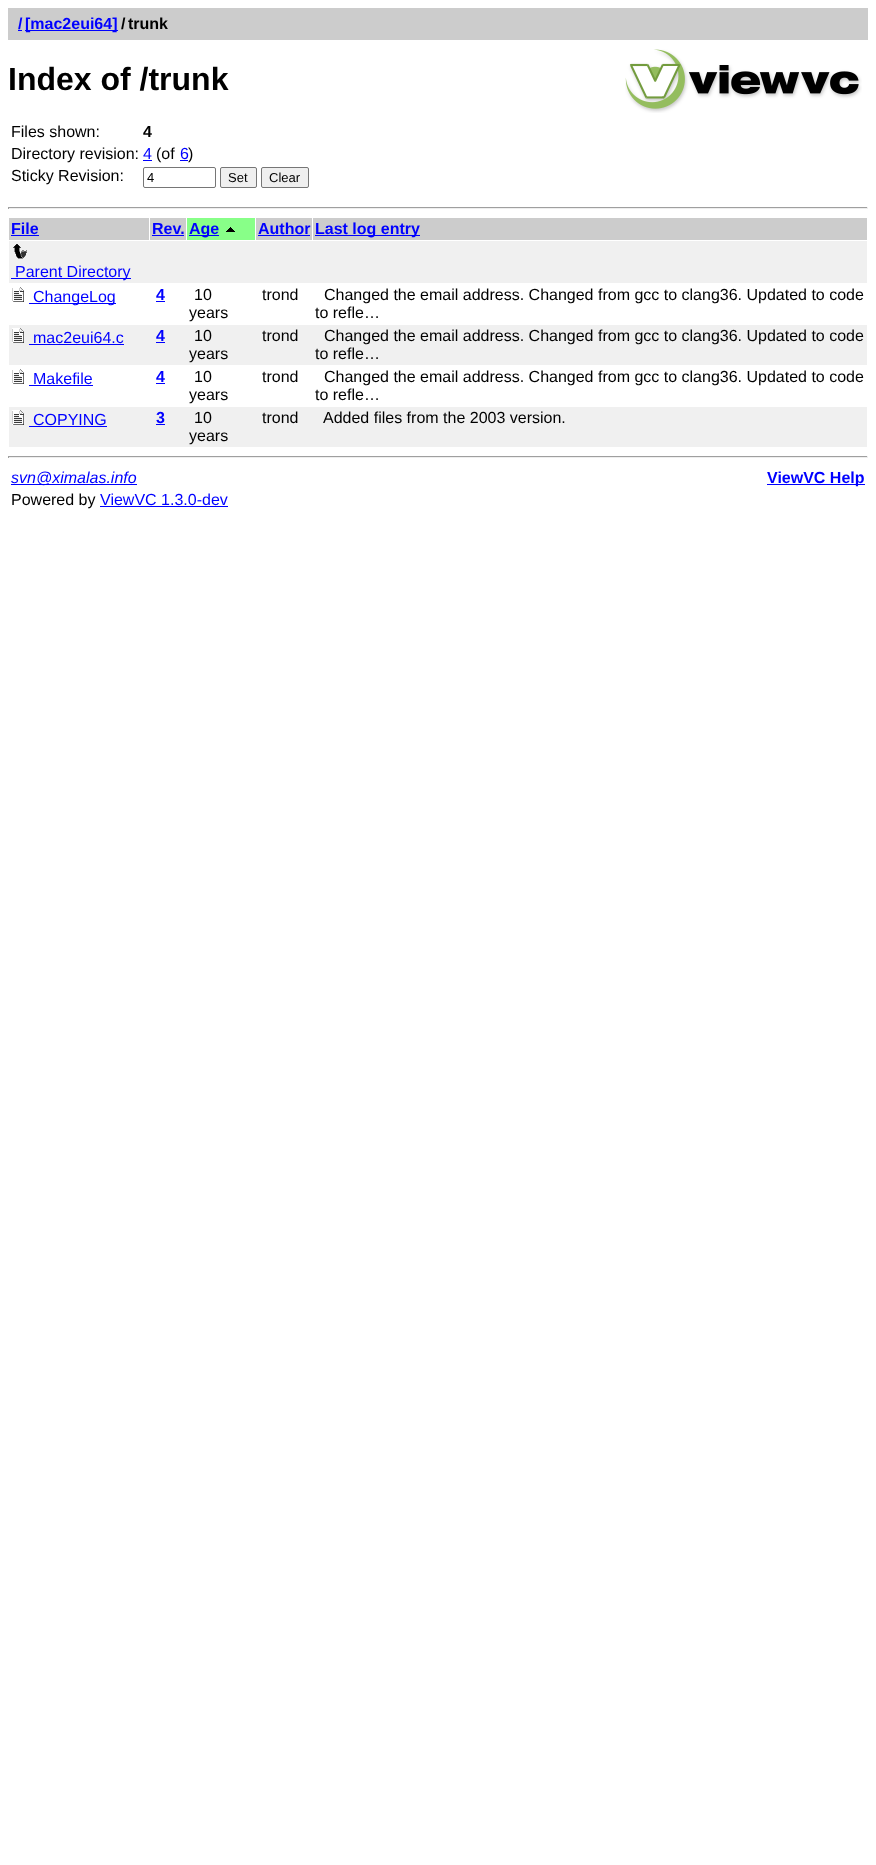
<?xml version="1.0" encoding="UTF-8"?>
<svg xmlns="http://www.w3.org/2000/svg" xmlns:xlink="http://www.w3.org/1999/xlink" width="876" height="1865">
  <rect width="100%" height="100%" fill="#ffffff" />
  <rect x="8" y="8" width="860" height="32" fill="#cccccc" />
  <rect x="18" y="30" width="4" height="1" fill="#0000ff" />
  <rect x="25" y="30" width="93" height="1" fill="#0000ff" />
  <image x="625" y="49" width="237" height="64" xlink:href="image1.png" />
  <rect x="143" y="160" width="9" height="1" fill="#0000ff" />
  <rect x="180" y="160" width="8" height="1" fill="#0000ff" />
  <rect x="143.5" y="167.5" width="72" height="20" rx="1.5" fill="none" stroke="#767676" />
  <rect x="220.5" y="167.5" width="36" height="20" rx="1.5" fill="#efefef" stroke="#767676" />
  <rect x="261.5" y="167.5" width="47" height="20" rx="1.5" fill="#efefef" stroke="#767676" />
  <rect x="8" y="207" width="860" height="1" fill="#9f9f9f" />
  <rect x="867" y="207" width="1" height="2" fill="#eeeeee" />
  <rect x="8" y="208" width="860" height="1" fill="#eeeeee" />
  <rect x="8" y="207" width="1" height="2" fill="#9f9f9f" />
  <rect x="9" y="218" width="140" height="22" fill="#cccccc" />
  <rect x="11" y="235" width="28" height="1" fill="#0000ff" />
  <rect x="150" y="218" width="36" height="22" fill="#cccccc" />
  <rect x="152" y="235" width="32" height="1" fill="#0000ff" />
  <rect x="187" y="218" width="68" height="22" fill="#88ff88" />
  <rect x="189" y="235" width="30" height="1" fill="#0000ff" />
  <image x="226" y="227" width="9" height="5" xlink:href="image2.png" />
  <rect x="256" y="218" width="56" height="22" fill="#cccccc" />
  <rect x="258" y="235" width="52" height="1" fill="#0000ff" />
  <rect x="313" y="218" width="554" height="22" fill="#cccccc" />
  <rect x="315" y="235" width="105" height="1" fill="#0000ff" />
  <rect x="9" y="241" width="858" height="42" fill="#f0f0f0" />
  <image x="13" y="244" width="14" height="15" xlink:href="image3.png" />
  <rect x="11" y="278" width="120" height="1" fill="#0000ff" />
  <image x="12" y="287" width="12" height="15" xlink:href="image4.png" />
  <rect x="29" y="303" width="87" height="1" fill="#0000ff" />
  <rect x="156" y="301" width="9" height="1" fill="#0000ff" />
  <rect x="9" y="325" width="858" height="40" fill="#f0f0f0" />
  <image x="12" y="328" width="12" height="15" xlink:href="image5.png" />
  <rect x="29" y="344" width="95" height="1" fill="#0000ff" />
  <rect x="156" y="342" width="9" height="1" fill="#0000ff" />
  <image x="12" y="369" width="12" height="15" xlink:href="image4.png" />
  <rect x="29" y="385" width="64" height="1" fill="#0000ff" />
  <rect x="156" y="383" width="9" height="1" fill="#0000ff" />
  <rect x="9" y="407" width="858" height="40" fill="#f0f0f0" />
  <image x="12" y="410" width="12" height="15" xlink:href="image5.png" />
  <rect x="29" y="426" width="78" height="1" fill="#0000ff" />
  <rect x="156" y="424" width="9" height="1" fill="#0000ff" />
  <rect x="8" y="456" width="860" height="1" fill="#9f9f9f" />
  <rect x="867" y="456" width="1" height="2" fill="#eeeeee" />
  <rect x="8" y="457" width="860" height="1" fill="#eeeeee" />
  <rect x="8" y="456" width="1" height="2" fill="#9f9f9f" />
  <rect x="11" y="484" width="126" height="1" fill="#0000ff" />
  <rect x="767" y="484" width="98" height="1" fill="#0000ff" />
  <rect x="100" y="506" width="128" height="1" fill="#0000ff" />
  <text x="18" y="29" style="font-family: Liberation Sans; font-size: 16px; font-weight: bold; fill: #0000ff">/</text>
  <text x="25" y="29" style="font-family: Liberation Sans; font-size: 16px; font-weight: bold; fill: #0000ff">[mac2eui64]</text>
  <text x="121" y="29" style="font-family: Liberation Sans; font-size: 16px; font-weight: bold; fill: #000000">/</text>
  <text x="128" y="29" style="font-family: Liberation Sans; font-size: 16px; font-weight: bold; fill: #000000">trunk</text>
  <text x="8" y="90" style="font-family: Liberation Sans; font-size: 32px; font-weight: bold; fill: #000000">Index of /trunk</text>
  <text x="11" y="137" style="font-family: Liberation Sans; font-size: 16px; fill: #000000">Files shown:</text>
  <text x="143" y="137" style="font-family: Liberation Sans; font-size: 16px; font-weight: bold; fill: #000000">4</text>
  <text x="11" y="159" style="font-family: Liberation Sans; font-size: 16px; fill: #000000">Directory revision:</text>
  <text x="143" y="159" style="font-family: Liberation Sans; font-size: 16px; fill: #0000ff">4</text>
  <text x="156" y="159" style="font-family: Liberation Sans; font-size: 16px; fill: #000000">(of</text>
  <text x="180" y="159" style="font-family: Liberation Sans; font-size: 16px; fill: #0000ff">6</text>
  <text x="188" y="159" style="font-family: Liberation Sans; font-size: 16px; fill: #000000">)</text>
  <text x="11" y="181" style="font-family: Liberation Sans; font-size: 16px; fill: #000000">Sticky Revision:</text>
  <text x="147" y="182" style="font-family: Liberation Sans; font-size: 13px; fill: #000000">4</text>
  <text x="228" y="182" style="font-family: Liberation Sans; font-size: 13px; fill: #000000">Set</text>
  <text x="269" y="182" style="font-family: Liberation Sans; font-size: 13px; fill: #000000">Clear</text>
  <text x="11" y="234" style="font-family: Liberation Sans; font-size: 16px; font-weight: bold; fill: #0000ff">File</text>
  <text x="152" y="234" style="font-family: Liberation Sans; font-size: 16px; font-weight: bold; fill: #0000ff">Rev.</text>
  <text x="189" y="234" style="font-family: Liberation Sans; font-size: 16px; font-weight: bold; fill: #0000ff">Age</text>
  <text x="258" y="234" style="font-family: Liberation Sans; font-size: 16px; font-weight: bold; fill: #0000ff">Author</text>
  <text x="315" y="234" style="font-family: Liberation Sans; font-size: 16px; font-weight: bold; fill: #0000ff">Last log entry</text>
  <text x="15" y="277" style="font-family: Liberation Sans; font-size: 16px; fill: #0000ff">Parent Directory</text>
  <text x="33" y="302" style="font-family: Liberation Sans; font-size: 16px; fill: #0000ff">ChangeLog</text>
  <text x="156" y="300" style="font-family: Liberation Sans; font-size: 16px; font-weight: bold; fill: #0000ff">4</text>
  <text x="194" y="300" style="font-family: Liberation Sans; font-size: 16px; fill: #000000">10</text>
  <text x="189" y="318" style="font-family: Liberation Sans; font-size: 16px; fill: #000000">years</text>
  <text x="262" y="300" style="font-family: Liberation Sans; font-size: 16px; fill: #000000">trond</text>
  <text x="324" y="300" style="font-family: Liberation Sans; font-size: 16px; fill: #000000">Changed the email address. Changed from gcc to clang36. Updated to code</text>
  <text x="315" y="318" style="font-family: Liberation Sans; font-size: 16px; fill: #000000">to refle…</text>
  <text x="33" y="343" style="font-family: Liberation Sans; font-size: 16px; fill: #0000ff">mac2eui64.c</text>
  <text x="156" y="341" style="font-family: Liberation Sans; font-size: 16px; font-weight: bold; fill: #0000ff">4</text>
  <text x="194" y="341" style="font-family: Liberation Sans; font-size: 16px; fill: #000000">10</text>
  <text x="189" y="359" style="font-family: Liberation Sans; font-size: 16px; fill: #000000">years</text>
  <text x="262" y="341" style="font-family: Liberation Sans; font-size: 16px; fill: #000000">trond</text>
  <text x="324" y="341" style="font-family: Liberation Sans; font-size: 16px; fill: #000000">Changed the email address. Changed from gcc to clang36. Updated to code</text>
  <text x="315" y="359" style="font-family: Liberation Sans; font-size: 16px; fill: #000000">to refle…</text>
  <text x="33" y="384" style="font-family: Liberation Sans; font-size: 16px; fill: #0000ff">Makefile</text>
  <text x="156" y="382" style="font-family: Liberation Sans; font-size: 16px; font-weight: bold; fill: #0000ff">4</text>
  <text x="194" y="382" style="font-family: Liberation Sans; font-size: 16px; fill: #000000">10</text>
  <text x="189" y="400" style="font-family: Liberation Sans; font-size: 16px; fill: #000000">years</text>
  <text x="262" y="382" style="font-family: Liberation Sans; font-size: 16px; fill: #000000">trond</text>
  <text x="324" y="382" style="font-family: Liberation Sans; font-size: 16px; fill: #000000">Changed the email address. Changed from gcc to clang36. Updated to code</text>
  <text x="315" y="400" style="font-family: Liberation Sans; font-size: 16px; fill: #000000">to refle…</text>
  <text x="33" y="425" style="font-family: Liberation Sans; font-size: 16px; fill: #0000ff">COPYING</text>
  <text x="156" y="423" style="font-family: Liberation Sans; font-size: 16px; font-weight: bold; fill: #0000ff">3</text>
  <text x="194" y="423" style="font-family: Liberation Sans; font-size: 16px; fill: #000000">10</text>
  <text x="189" y="441" style="font-family: Liberation Sans; font-size: 16px; fill: #000000">years</text>
  <text x="262" y="423" style="font-family: Liberation Sans; font-size: 16px; fill: #000000">trond</text>
  <text x="323" y="423" style="font-family: Liberation Sans; font-size: 16px; fill: #000000">Added files from the 2003 version.</text>
  <text x="11" y="483" style="font-family: Liberation Sans; font-size: 16px; font-style: italic; fill: #0000ff">svn@ximalas.info</text>
  <text x="767" y="483" style="font-family: Liberation Sans; font-size: 16px; font-weight: bold; fill: #0000ff">ViewVC Help</text>
  <text x="11" y="505" style="font-family: Liberation Sans; font-size: 16px; fill: #000000">Powered by</text>
  <text x="100" y="505" style="font-family: Liberation Sans; font-size: 16px; fill: #0000ff">ViewVC 1.3.0-dev</text>
</svg>
